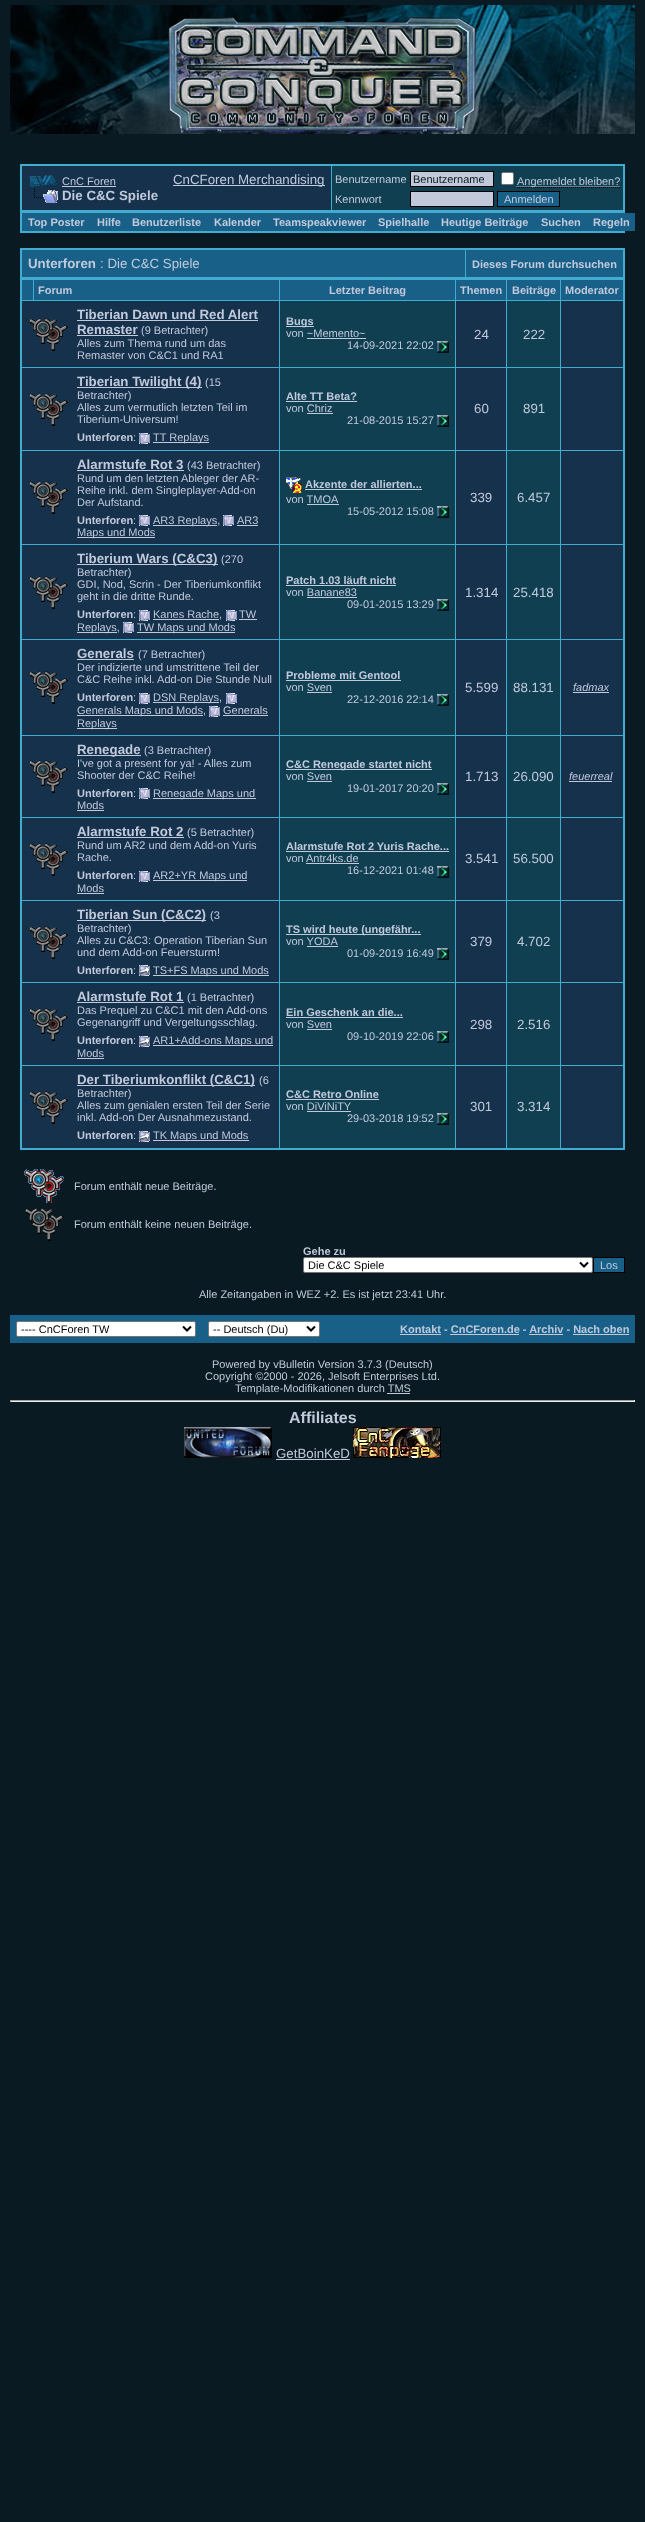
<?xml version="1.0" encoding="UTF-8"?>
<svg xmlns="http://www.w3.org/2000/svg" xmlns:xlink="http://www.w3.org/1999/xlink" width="645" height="2522">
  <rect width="100%" height="100%" fill="#091a22" />
  <image x="10" y="5" width="625" height="129" xlink:href="image1.png" />
  <image x="168" y="17" width="308" height="116" xlink:href="image2.png" />
  <rect x="20" y="164" width="605" height="48" fill="#41acd0" />
  <rect x="22" y="166" width="309" height="44" fill="#16314c" />
  <image x="29" y="175" width="28" height="12" xlink:href="image3.png" />
  <rect x="62" y="186" width="54" height="1" fill="#c1c9db" />
  <image x="34" y="189" width="24" height="14" xlink:href="image4.png" />
  <rect x="173" y="185" width="152" height="1" fill="#c1c9db" />
  <rect x="332" y="166" width="291" height="44" fill="#103f51" />
  <rect x="410.5" y="171.5" width="83" height="15" fill="#c1c9db" stroke="#000000" />
  <rect x="501.5" y="172.5" width="12" height="12" rx="1.5" fill="#ffffff" stroke="#767676" />
  <path d="M 517 187.5 h 103" fill="none" stroke="#000000" stroke-dasharray="1 1" />
  <path d="M 516.5 186.5 h 103.5" fill="none" stroke="#c1c9db" stroke-dasharray="1 1" />
  <rect x="410.5" y="191.5" width="83" height="15" fill="#c1c9db" stroke="#000000" />
  <rect x="497.5" y="191.5" width="62" height="15" fill="#186088" stroke="#000000" />
  <rect x="21" y="212" width="603" height="20" fill="#41acd0" />
  <rect x="624" y="212" width="1" height="21" fill="#41acd0" />
  <rect x="20" y="232" width="605" height="1" fill="#41acd0" />
  <rect x="20" y="212" width="1" height="21" fill="#41acd0" />
  <rect x="22" y="213" width="613" height="18" fill="#186088" />
  <rect x="21" y="249" width="603" height="29" fill="#41acd0" />
  <rect x="20" y="248" width="605" height="1" fill="#41acd0" />
  <rect x="624" y="248" width="1" height="30" fill="#41acd0" />
  <rect x="20" y="248" width="1" height="30" fill="#41acd0" />
  <rect x="22" y="250" width="443" height="27" fill="#186088" />
  <rect x="466" y="250" width="157" height="27" fill="#186088" />
  <rect x="20" y="278" width="605" height="872" fill="#41acd0" />
  <rect x="22" y="280" width="11" height="20" fill="#186088" />
  <rect x="34" y="280" width="245" height="20" fill="#186088" />
  <rect x="280" y="280" width="175" height="20" fill="#186088" />
  <rect x="456" y="280" width="50" height="20" fill="#186088" />
  <rect x="507" y="280" width="53" height="20" fill="#186088" />
  <rect x="561" y="280" width="62" height="20" fill="#186088" />
  <rect x="22" y="301" width="257" height="66" fill="#16314c" />
  <image x="29" y="318" width="39" height="33" xlink:href="image5.png" />
  <rect x="77" y="320" width="181" height="1" fill="#c1c9db" />
  <rect x="77" y="335" width="61" height="1" fill="#c1c9db" />
  <rect x="280" y="301" width="175" height="66" fill="#103f51" />
  <rect x="286" y="326" width="28" height="1" fill="#c1c9db" />
  <rect x="307" y="338" width="59" height="1" fill="#c1c9db" />
  <image x="437" y="341" width="12" height="12" xlink:href="image6.png" />
  <rect x="456" y="301" width="50" height="66" fill="#16314c" />
  <rect x="507" y="301" width="53" height="66" fill="#103f51" />
  <rect x="561" y="301" width="62" height="66" fill="#16314c" />
  <rect x="22" y="368" width="257" height="82" fill="#16314c" />
  <image x="29" y="393" width="39" height="33" xlink:href="image5.png" />
  <rect x="77" y="387" width="125" height="1" fill="#c1c9db" />
  <image x="139" y="433" width="11" height="11" xlink:href="image7.png" />
  <rect x="153" y="442" width="56" height="1" fill="#c1c9db" />
  <rect x="280" y="368" width="175" height="82" fill="#103f51" />
  <rect x="286" y="401" width="71" height="1" fill="#c1c9db" />
  <rect x="307" y="413" width="26" height="1" fill="#c1c9db" />
  <image x="437" y="415" width="12" height="12" xlink:href="image6.png" />
  <rect x="456" y="368" width="50" height="82" fill="#16314c" />
  <rect x="507" y="368" width="53" height="82" fill="#103f51" />
  <rect x="561" y="368" width="62" height="82" fill="#16314c" />
  <rect x="22" y="451" width="257" height="93" fill="#16314c" />
  <image x="29" y="481" width="39" height="33" xlink:href="image5.png" />
  <rect x="77" y="470" width="107" height="1" fill="#c1c9db" />
  <image x="139" y="515" width="11" height="11" xlink:href="image7.png" />
  <rect x="153" y="525" width="64" height="1" fill="#c1c9db" />
  <image x="223" y="515" width="11" height="11" xlink:href="image7.png" />
  <rect x="237" y="525" width="21" height="1" fill="#c1c9db" />
  <rect x="77" y="537" width="78" height="1" fill="#c1c9db" />
  <rect x="280" y="451" width="175" height="93" fill="#103f51" />
  <image x="286" y="477" width="16" height="16" xlink:href="image8.png" />
  <rect x="305" y="489" width="117" height="1" fill="#c1c9db" />
  <rect x="307" y="504" width="32" height="1" fill="#c1c9db" />
  <image x="437" y="506" width="12" height="12" xlink:href="image6.png" />
  <rect x="456" y="451" width="50" height="93" fill="#16314c" />
  <rect x="507" y="451" width="53" height="93" fill="#103f51" />
  <rect x="561" y="451" width="62" height="93" fill="#16314c" />
  <rect x="22" y="545" width="257" height="94" fill="#16314c" />
  <image x="29" y="576" width="39" height="33" xlink:href="image5.png" />
  <rect x="77" y="564" width="141" height="1" fill="#c1c9db" />
  <image x="139" y="610" width="11" height="11" xlink:href="image7.png" />
  <rect x="153" y="619" width="66" height="1" fill="#c1c9db" />
  <image x="226" y="610" width="11" height="11" xlink:href="image7.png" />
  <rect x="239" y="619" width="18" height="1" fill="#c1c9db" />
  <rect x="77" y="632" width="40" height="1" fill="#c1c9db" />
  <image x="123" y="622" width="11" height="11" xlink:href="image7.png" />
  <rect x="137" y="632" width="98" height="1" fill="#c1c9db" />
  <rect x="280" y="545" width="175" height="94" fill="#103f51" />
  <rect x="286" y="585" width="110" height="1" fill="#c1c9db" />
  <rect x="307" y="597" width="50" height="1" fill="#c1c9db" />
  <image x="437" y="599" width="12" height="12" xlink:href="image6.png" />
  <rect x="456" y="545" width="50" height="94" fill="#16314c" />
  <rect x="507" y="545" width="53" height="94" fill="#103f51" />
  <rect x="561" y="545" width="62" height="94" fill="#16314c" />
  <rect x="22" y="640" width="257" height="95" fill="#16314c" />
  <image x="29" y="671" width="39" height="33" xlink:href="image5.png" />
  <rect x="77" y="659" width="57" height="1" fill="#c1c9db" />
  <image x="139" y="693" width="11" height="11" xlink:href="image7.png" />
  <rect x="153" y="702" width="66" height="1" fill="#c1c9db" />
  <image x="226" y="693" width="11" height="11" xlink:href="image7.png" />
  <rect x="77" y="715" width="126" height="1" fill="#c1c9db" />
  <image x="209" y="706" width="11" height="11" xlink:href="image7.png" />
  <rect x="223" y="715" width="45" height="1" fill="#c1c9db" />
  <rect x="77" y="728" width="40" height="1" fill="#c1c9db" />
  <rect x="280" y="640" width="175" height="95" fill="#103f51" />
  <rect x="286" y="680" width="115" height="1" fill="#c1c9db" />
  <rect x="307" y="692" width="25" height="1" fill="#c1c9db" />
  <image x="437" y="694" width="12" height="12" xlink:href="image6.png" />
  <rect x="456" y="640" width="50" height="95" fill="#16314c" />
  <rect x="507" y="640" width="53" height="95" fill="#103f51" />
  <rect x="561" y="640" width="62" height="95" fill="#16314c" />
  <rect x="573" y="692" width="36" height="1" fill="#c1c9db" />
  <rect x="22" y="736" width="257" height="81" fill="#16314c" />
  <image x="29" y="760" width="39" height="33" xlink:href="image5.png" />
  <rect x="77" y="755" width="64" height="1" fill="#c1c9db" />
  <image x="139" y="788" width="11" height="11" xlink:href="image7.png" />
  <rect x="153" y="798" width="103" height="1" fill="#c1c9db" />
  <rect x="77" y="810" width="27" height="1" fill="#c1c9db" />
  <rect x="280" y="736" width="175" height="81" fill="#103f51" />
  <rect x="286" y="769" width="146" height="1" fill="#c1c9db" />
  <rect x="307" y="781" width="25" height="1" fill="#c1c9db" />
  <image x="437" y="783" width="12" height="12" xlink:href="image6.png" />
  <rect x="456" y="736" width="50" height="81" fill="#16314c" />
  <rect x="507" y="736" width="53" height="81" fill="#103f51" />
  <rect x="561" y="736" width="62" height="81" fill="#16314c" />
  <rect x="569" y="781" width="43" height="1" fill="#c1c9db" />
  <rect x="22" y="818" width="257" height="82" fill="#16314c" />
  <image x="29" y="843" width="39" height="33" xlink:href="image5.png" />
  <rect x="77" y="837" width="107" height="1" fill="#c1c9db" />
  <image x="139" y="871" width="11" height="11" xlink:href="image7.png" />
  <rect x="153" y="880" width="94" height="1" fill="#c1c9db" />
  <rect x="77" y="893" width="27" height="1" fill="#c1c9db" />
  <rect x="280" y="818" width="175" height="82" fill="#103f51" />
  <rect x="286" y="851" width="163" height="1" fill="#c1c9db" />
  <rect x="306" y="863" width="53" height="1" fill="#c1c9db" />
  <image x="437" y="866" width="12" height="12" xlink:href="image6.png" />
  <rect x="456" y="818" width="50" height="82" fill="#16314c" />
  <rect x="507" y="818" width="53" height="82" fill="#103f51" />
  <rect x="561" y="818" width="62" height="82" fill="#16314c" />
  <rect x="22" y="901" width="257" height="81" fill="#16314c" />
  <image x="29" y="926" width="39" height="33" xlink:href="image5.png" />
  <rect x="77" y="920" width="129" height="1" fill="#c1c9db" />
  <image x="139" y="965" width="11" height="11" xlink:href="image9.png" />
  <rect x="153" y="975" width="116" height="1" fill="#c1c9db" />
  <rect x="280" y="901" width="175" height="81" fill="#103f51" />
  <rect x="286" y="934" width="135" height="1" fill="#c1c9db" />
  <rect x="307" y="946" width="31" height="1" fill="#c1c9db" />
  <image x="437" y="948" width="12" height="12" xlink:href="image6.png" />
  <rect x="456" y="901" width="50" height="81" fill="#16314c" />
  <rect x="507" y="901" width="53" height="81" fill="#103f51" />
  <rect x="561" y="901" width="62" height="81" fill="#16314c" />
  <rect x="22" y="983" width="257" height="82" fill="#16314c" />
  <image x="29" y="1008" width="39" height="33" xlink:href="image5.png" />
  <rect x="77" y="1002" width="107" height="1" fill="#c1c9db" />
  <image x="139" y="1036" width="11" height="11" xlink:href="image9.png" />
  <rect x="153" y="1045" width="120" height="1" fill="#c1c9db" />
  <rect x="77" y="1058" width="27" height="1" fill="#c1c9db" />
  <rect x="280" y="983" width="175" height="82" fill="#103f51" />
  <rect x="286" y="1017" width="117" height="1" fill="#c1c9db" />
  <rect x="307" y="1029" width="25" height="1" fill="#c1c9db" />
  <image x="437" y="1031" width="12" height="12" xlink:href="image6.png" />
  <rect x="456" y="983" width="50" height="82" fill="#16314c" />
  <rect x="507" y="983" width="53" height="82" fill="#103f51" />
  <rect x="561" y="983" width="62" height="82" fill="#16314c" />
  <rect x="22" y="1066" width="257" height="82" fill="#16314c" />
  <image x="29" y="1091" width="39" height="33" xlink:href="image5.png" />
  <rect x="77" y="1085" width="178" height="1" fill="#c1c9db" />
  <image x="139" y="1131" width="11" height="11" xlink:href="image9.png" />
  <rect x="153" y="1140" width="96" height="1" fill="#c1c9db" />
  <rect x="280" y="1066" width="175" height="82" fill="#103f51" />
  <rect x="286" y="1099" width="93" height="1" fill="#c1c9db" />
  <rect x="307" y="1111" width="44" height="1" fill="#c1c9db" />
  <image x="437" y="1113" width="12" height="12" xlink:href="image6.png" />
  <rect x="456" y="1066" width="50" height="82" fill="#16314c" />
  <rect x="507" y="1066" width="53" height="82" fill="#103f51" />
  <rect x="561" y="1066" width="62" height="82" fill="#16314c" />
  <image x="24" y="1169" width="40" height="34" xlink:href="image10.png" />
  <image x="25" y="1208" width="39" height="33" xlink:href="image11.png" />
  <rect x="303.5" y="1257.5" width="289" height="15" rx="1.5" fill="#ffffff" stroke="#767676" />
  <path d="M 580 1262.5 l 4 4 l 4 -4" fill="none" stroke="#000000" stroke-width="2" />
  <rect x="593.5" y="1257.5" width="31" height="15" fill="#186088" stroke="#000000" />
  <rect x="10" y="1315" width="625" height="28" fill="#186088" />
  <rect x="16.5" y="1321.5" width="179" height="15" rx="1.5" fill="#ffffff" stroke="#767676" />
  <path d="M 183 1326.5 l 4 4 l 4 -4" fill="none" stroke="#000000" stroke-width="2" />
  <rect x="208.5" y="1321.5" width="111" height="15" rx="1.5" fill="#ffffff" stroke="#767676" />
  <path d="M 307 1326.5 l 4 4 l 4 -4" fill="none" stroke="#000000" stroke-width="2" />
  <rect x="400" y="1334" width="41" height="1" fill="#c1c9db" />
  <rect x="450" y="1334" width="69" height="1" fill="#c1c9db" />
  <rect x="529" y="1334" width="34" height="1" fill="#c1c9db" />
  <rect x="573" y="1334" width="56" height="1" fill="#c1c9db" />
  <rect x="387" y="1393" width="23" height="1" fill="#c1c9db" />
  <rect x="10" y="1400" width="625" height="1" fill="#9f9f9f" />
  <rect x="634" y="1400" width="1" height="2" fill="#eeeeee" />
  <rect x="10" y="1401" width="625" height="1" fill="#eeeeee" />
  <rect x="10" y="1400" width="1" height="2" fill="#9f9f9f" />
  <image x="184" y="1427" width="88" height="31" xlink:href="image12.png" />
  <rect x="276" y="1459" width="74" height="1" fill="#c1c9db" />
  <image x="353" y="1427" width="88" height="31" xlink:href="image13.png" />
  <text x="62" y="185" style="font-family: Liberation Sans; font-size: 11px; fill: #c1c9db">CnC Foren</text>
  <text x="62" y="200" style="font-family: Liberation Sans; font-size: 13.3px; font-weight: bold; fill: #c1c9db">Die C&amp;C Spiele</text>
  <text x="173" y="184" style="font-family: Liberation Sans; font-size: 13.3px; fill: #c1c9db">CnCForen Merchandising</text>
  <text x="335" y="183" style="font-family: Liberation Sans; font-size: 11px; fill: #c1c9db">Benutzername</text>
  <text x="413" y="183" style="font-family: Liberation Sans; font-size: 11px; fill: #091a22">Benutzername</text>
  <text x="517" y="185" style="font-family: Liberation Sans; font-size: 11px; fill: #c1c9db">Angemeldet bleiben?</text>
  <text x="335" y="203" style="font-family: Liberation Sans; font-size: 11px; fill: #c1c9db">Kennwort</text>
  <text x="504" y="203" style="font-family: Liberation Sans; font-size: 11px; fill: #c1c9db">Anmelden</text>
  <text x="28" y="226" style="font-family: Liberation Sans; font-size: 11px; font-weight: bold; fill: #c1c9db">Top Poster</text>
  <text x="97" y="226" style="font-family: Liberation Sans; font-size: 11px; font-weight: bold; fill: #c1c9db">Hilfe</text>
  <text x="132" y="226" style="font-family: Liberation Sans; font-size: 11px; font-weight: bold; fill: #c1c9db">Benutzerliste</text>
  <text x="214" y="226" style="font-family: Liberation Sans; font-size: 11px; font-weight: bold; fill: #c1c9db">Kalender</text>
  <text x="273" y="226" style="font-family: Liberation Sans; font-size: 11px; font-weight: bold; fill: #c1c9db">Teamspeakviewer</text>
  <text x="378" y="226" style="font-family: Liberation Sans; font-size: 11px; font-weight: bold; fill: #c1c9db">Spielhalle</text>
  <text x="441" y="226" style="font-family: Liberation Sans; font-size: 11px; font-weight: bold; fill: #c1c9db">Heutige Beiträge</text>
  <text x="541" y="226" style="font-family: Liberation Sans; font-size: 11px; font-weight: bold; fill: #c1c9db">Suchen</text>
  <text x="593" y="226" style="font-family: Liberation Sans; font-size: 11px; font-weight: bold; fill: #c1c9db">Regeln</text>
  <text x="28" y="268" style="font-family: Liberation Sans; font-size: 13.3px; font-weight: bold; fill: #c1c9db">Unterforen</text>
  <text x="100" y="268" style="font-family: Liberation Sans; font-size: 13.3px; fill: #c1c9db">: Die C&amp;C Spiele</text>
  <text x="472" y="268" style="font-family: Liberation Sans; font-size: 11px; font-weight: bold; fill: #c1c9db">Dieses Forum durchsuchen</text>
  <text x="38" y="294" style="font-family: Liberation Sans; font-size: 11px; font-weight: bold; fill: #c1c9db">Forum</text>
  <text x="329" y="294" style="font-family: Liberation Sans; font-size: 11px; font-weight: bold; fill: #c1c9db">Letzter Beitrag</text>
  <text x="460" y="294" style="font-family: Liberation Sans; font-size: 11px; font-weight: bold; fill: #c1c9db">Themen</text>
  <text x="512" y="294" style="font-family: Liberation Sans; font-size: 11px; font-weight: bold; fill: #c1c9db">Beiträge</text>
  <text x="565" y="294" style="font-family: Liberation Sans; font-size: 11px; font-weight: bold; fill: #c1c9db">Moderator</text>
  <text x="77" y="319" style="font-family: Liberation Sans; font-size: 13.3px; font-weight: bold; fill: #c1c9db">Tiberian Dawn und Red Alert</text>
  <text x="77" y="334" style="font-family: Liberation Sans; font-size: 13.3px; font-weight: bold; fill: #c1c9db">Remaster</text>
  <text x="141" y="334" style="font-family: Liberation Sans; font-size: 11px; fill: #c1c9db">(9 Betrachter)</text>
  <text x="77" y="347" style="font-family: Liberation Sans; font-size: 11px; fill: #c1c9db">Alles zum Thema rund um das</text>
  <text x="77" y="359" style="font-family: Liberation Sans; font-size: 11px; fill: #c1c9db">Remaster von C&amp;C1 und RA1</text>
  <text x="286" y="325" style="font-family: Liberation Sans; font-size: 11px; font-weight: bold; fill: #c1c9db">Bugs</text>
  <text x="286" y="337" style="font-family: Liberation Sans; font-size: 11px; fill: #c1c9db">von ~Memento~</text>
  <text x="347" y="349" style="font-family: Liberation Sans; font-size: 11px; fill: #c1c9db">14-09-2021 22:02</text>
  <text x="474" y="339" style="font-family: Liberation Sans; font-size: 13.3px; fill: #c1c9db">24</text>
  <text x="523" y="339" style="font-family: Liberation Sans; font-size: 13.3px; fill: #c1c9db">222</text>
  <text x="77" y="386" style="font-family: Liberation Sans; font-size: 13.3px; font-weight: bold; fill: #c1c9db">Tiberian Twilight (4)</text>
  <text x="205" y="386" style="font-family: Liberation Sans; font-size: 11px; fill: #c1c9db">(15</text>
  <text x="77" y="399" style="font-family: Liberation Sans; font-size: 11px; fill: #c1c9db">Betrachter)</text>
  <text x="77" y="411" style="font-family: Liberation Sans; font-size: 11px; fill: #c1c9db">Alles zum vermutlich letzten Teil im</text>
  <text x="77" y="423" style="font-family: Liberation Sans; font-size: 11px; fill: #c1c9db">Tiberium-Universum!</text>
  <text x="77" y="441" style="font-family: Liberation Sans; font-size: 11px; font-weight: bold; fill: #c1c9db">Unterforen</text>
  <text x="133" y="441" style="font-family: Liberation Sans; font-size: 11px; fill: #c1c9db">:</text>
  <text x="153" y="441" style="font-family: Liberation Sans; font-size: 11px; fill: #c1c9db">TT Replays</text>
  <text x="286" y="400" style="font-family: Liberation Sans; font-size: 11px; font-weight: bold; fill: #c1c9db">Alte TT Beta?</text>
  <text x="286" y="412" style="font-family: Liberation Sans; font-size: 11px; fill: #c1c9db">von Chriz</text>
  <text x="347" y="424" style="font-family: Liberation Sans; font-size: 11px; fill: #c1c9db">21-08-2015 15:27</text>
  <text x="474" y="413" style="font-family: Liberation Sans; font-size: 13.3px; fill: #c1c9db">60</text>
  <text x="523" y="413" style="font-family: Liberation Sans; font-size: 13.3px; fill: #c1c9db">891</text>
  <text x="77" y="469" style="font-family: Liberation Sans; font-size: 13.3px; font-weight: bold; fill: #c1c9db">Alarmstufe Rot 3</text>
  <text x="187" y="469" style="font-family: Liberation Sans; font-size: 11px; fill: #c1c9db">(43 Betrachter)</text>
  <text x="77" y="482" style="font-family: Liberation Sans; font-size: 11px; fill: #c1c9db">Rund um den letzten Ableger der AR-</text>
  <text x="77" y="494" style="font-family: Liberation Sans; font-size: 11px; fill: #c1c9db">Reihe inkl. dem Singleplayer-Add-on</text>
  <text x="77" y="506" style="font-family: Liberation Sans; font-size: 11px; fill: #c1c9db">Der Aufstand.</text>
  <text x="77" y="524" style="font-family: Liberation Sans; font-size: 11px; font-weight: bold; fill: #c1c9db">Unterforen</text>
  <text x="133" y="524" style="font-family: Liberation Sans; font-size: 11px; fill: #c1c9db">:</text>
  <text x="153" y="524" style="font-family: Liberation Sans; font-size: 11px; fill: #c1c9db">AR3 Replays,</text>
  <text x="237" y="524" style="font-family: Liberation Sans; font-size: 11px; fill: #c1c9db">AR3</text>
  <text x="77" y="536" style="font-family: Liberation Sans; font-size: 11px; fill: #c1c9db">Maps und Mods</text>
  <text x="305" y="488" style="font-family: Liberation Sans; font-size: 11px; font-weight: bold; fill: #c1c9db">Akzente der allierten...</text>
  <text x="286" y="503" style="font-family: Liberation Sans; font-size: 11px; fill: #c1c9db">von TMOA</text>
  <text x="347" y="515" style="font-family: Liberation Sans; font-size: 11px; fill: #c1c9db">15-05-2012 15:08</text>
  <text x="470" y="502" style="font-family: Liberation Sans; font-size: 13.3px; fill: #c1c9db">339</text>
  <text x="517" y="502" style="font-family: Liberation Sans; font-size: 13.3px; fill: #c1c9db">6.457</text>
  <text x="77" y="563" style="font-family: Liberation Sans; font-size: 13.3px; font-weight: bold; fill: #c1c9db">Tiberium Wars (C&amp;C3)</text>
  <text x="221" y="563" style="font-family: Liberation Sans; font-size: 11px; fill: #c1c9db">(270</text>
  <text x="77" y="576" style="font-family: Liberation Sans; font-size: 11px; fill: #c1c9db">Betrachter)</text>
  <text x="77" y="588" style="font-family: Liberation Sans; font-size: 11px; fill: #c1c9db">GDI, Nod, Scrin - Der Tiberiumkonflikt</text>
  <text x="77" y="600" style="font-family: Liberation Sans; font-size: 11px; fill: #c1c9db">geht in die dritte Runde.</text>
  <text x="77" y="618" style="font-family: Liberation Sans; font-size: 11px; font-weight: bold; fill: #c1c9db">Unterforen</text>
  <text x="133" y="618" style="font-family: Liberation Sans; font-size: 11px; fill: #c1c9db">:</text>
  <text x="153" y="618" style="font-family: Liberation Sans; font-size: 11px; fill: #c1c9db">Kanes Rache,</text>
  <text x="239" y="618" style="font-family: Liberation Sans; font-size: 11px; fill: #c1c9db">TW</text>
  <text x="77" y="631" style="font-family: Liberation Sans; font-size: 11px; fill: #c1c9db">Replays,</text>
  <text x="137" y="631" style="font-family: Liberation Sans; font-size: 11px; fill: #c1c9db">TW Maps und Mods</text>
  <text x="286" y="584" style="font-family: Liberation Sans; font-size: 11px; font-weight: bold; fill: #c1c9db">Patch 1.03 läuft nicht</text>
  <text x="286" y="596" style="font-family: Liberation Sans; font-size: 11px; fill: #c1c9db">von Banane83</text>
  <text x="347" y="608" style="font-family: Liberation Sans; font-size: 11px; fill: #c1c9db">09-01-2015 13:29</text>
  <text x="465" y="597" style="font-family: Liberation Sans; font-size: 13.3px; fill: #c1c9db">1.314</text>
  <text x="513" y="597" style="font-family: Liberation Sans; font-size: 13.3px; fill: #c1c9db">25.418</text>
  <text x="77" y="658" style="font-family: Liberation Sans; font-size: 13.3px; font-weight: bold; fill: #c1c9db">Generals</text>
  <text x="138" y="658" style="font-family: Liberation Sans; font-size: 11px; fill: #c1c9db">(7 Betrachter)</text>
  <text x="77" y="671" style="font-family: Liberation Sans; font-size: 11px; fill: #c1c9db">Der indizierte und umstrittene Teil der</text>
  <text x="77" y="683" style="font-family: Liberation Sans; font-size: 11px; fill: #c1c9db">C&amp;C Reihe inkl. Add-on Die Stunde Null</text>
  <text x="77" y="701" style="font-family: Liberation Sans; font-size: 11px; font-weight: bold; fill: #c1c9db">Unterforen</text>
  <text x="133" y="701" style="font-family: Liberation Sans; font-size: 11px; fill: #c1c9db">:</text>
  <text x="153" y="701" style="font-family: Liberation Sans; font-size: 11px; fill: #c1c9db">DSN Replays,</text>
  <text x="77" y="714" style="font-family: Liberation Sans; font-size: 11px; fill: #c1c9db">Generals Maps und Mods,</text>
  <text x="223" y="714" style="font-family: Liberation Sans; font-size: 11px; fill: #c1c9db">Generals</text>
  <text x="77" y="727" style="font-family: Liberation Sans; font-size: 11px; fill: #c1c9db">Replays</text>
  <text x="286" y="679" style="font-family: Liberation Sans; font-size: 11px; font-weight: bold; fill: #c1c9db">Probleme mit Gentool</text>
  <text x="286" y="691" style="font-family: Liberation Sans; font-size: 11px; fill: #c1c9db">von Sven</text>
  <text x="347" y="703" style="font-family: Liberation Sans; font-size: 11px; fill: #c1c9db">22-12-2016 22:14</text>
  <text x="465" y="692" style="font-family: Liberation Sans; font-size: 13.3px; fill: #c1c9db">5.599</text>
  <text x="513" y="692" style="font-family: Liberation Sans; font-size: 13.3px; fill: #c1c9db">88.131</text>
  <text x="573" y="691" style="font-family: Liberation Sans; font-size: 11px; font-style: italic; fill: #c1c9db">fadmax</text>
  <text x="77" y="754" style="font-family: Liberation Sans; font-size: 13.3px; font-weight: bold; fill: #c1c9db">Renegade</text>
  <text x="144" y="754" style="font-family: Liberation Sans; font-size: 11px; fill: #c1c9db">(3 Betrachter)</text>
  <text x="77" y="767" style="font-family: Liberation Sans; font-size: 11px; fill: #c1c9db">I've got a present for ya! - Alles zum</text>
  <text x="77" y="779" style="font-family: Liberation Sans; font-size: 11px; fill: #c1c9db">Shooter der C&amp;C Reihe!</text>
  <text x="77" y="797" style="font-family: Liberation Sans; font-size: 11px; font-weight: bold; fill: #c1c9db">Unterforen</text>
  <text x="133" y="797" style="font-family: Liberation Sans; font-size: 11px; fill: #c1c9db">:</text>
  <text x="153" y="797" style="font-family: Liberation Sans; font-size: 11px; fill: #c1c9db">Renegade Maps und</text>
  <text x="77" y="809" style="font-family: Liberation Sans; font-size: 11px; fill: #c1c9db">Mods</text>
  <text x="286" y="768" style="font-family: Liberation Sans; font-size: 11px; font-weight: bold; fill: #c1c9db">C&amp;C Renegade startet nicht</text>
  <text x="286" y="780" style="font-family: Liberation Sans; font-size: 11px; fill: #c1c9db">von Sven</text>
  <text x="347" y="792" style="font-family: Liberation Sans; font-size: 11px; fill: #c1c9db">19-01-2017 20:20</text>
  <text x="465" y="781" style="font-family: Liberation Sans; font-size: 13.3px; fill: #c1c9db">1.713</text>
  <text x="513" y="781" style="font-family: Liberation Sans; font-size: 13.3px; fill: #c1c9db">26.090</text>
  <text x="569" y="780" style="font-family: Liberation Sans; font-size: 11px; font-style: italic; fill: #c1c9db">feuerreal</text>
  <text x="77" y="836" style="font-family: Liberation Sans; font-size: 13.3px; font-weight: bold; fill: #c1c9db">Alarmstufe Rot 2</text>
  <text x="187" y="836" style="font-family: Liberation Sans; font-size: 11px; fill: #c1c9db">(5 Betrachter)</text>
  <text x="77" y="849" style="font-family: Liberation Sans; font-size: 11px; fill: #c1c9db">Rund um AR2 und dem Add-on Yuris</text>
  <text x="77" y="861" style="font-family: Liberation Sans; font-size: 11px; fill: #c1c9db">Rache.</text>
  <text x="77" y="879" style="font-family: Liberation Sans; font-size: 11px; font-weight: bold; fill: #c1c9db">Unterforen</text>
  <text x="133" y="879" style="font-family: Liberation Sans; font-size: 11px; fill: #c1c9db">:</text>
  <text x="153" y="879" style="font-family: Liberation Sans; font-size: 11px; fill: #c1c9db">AR2+YR Maps und</text>
  <text x="77" y="892" style="font-family: Liberation Sans; font-size: 11px; fill: #c1c9db">Mods</text>
  <text x="286" y="850" style="font-family: Liberation Sans; font-size: 11px; font-weight: bold; fill: #c1c9db">Alarmstufe Rot 2 Yuris Rache...</text>
  <text x="286" y="862" style="font-family: Liberation Sans; font-size: 11px; fill: #c1c9db">von</text>
  <text x="306" y="862" style="font-family: Liberation Sans; font-size: 11px; fill: #c1c9db">Antr4ks.de</text>
  <text x="347" y="874" style="font-family: Liberation Sans; font-size: 11px; fill: #c1c9db">16-12-2021 01:48</text>
  <text x="465" y="863" style="font-family: Liberation Sans; font-size: 13.3px; fill: #c1c9db">3.541</text>
  <text x="513" y="863" style="font-family: Liberation Sans; font-size: 13.3px; fill: #c1c9db">56.500</text>
  <text x="77" y="919" style="font-family: Liberation Sans; font-size: 13.3px; font-weight: bold; fill: #c1c9db">Tiberian Sun (C&amp;C2)</text>
  <text x="210" y="919" style="font-family: Liberation Sans; font-size: 11px; fill: #c1c9db">(3</text>
  <text x="77" y="932" style="font-family: Liberation Sans; font-size: 11px; fill: #c1c9db">Betrachter)</text>
  <text x="77" y="944" style="font-family: Liberation Sans; font-size: 11px; fill: #c1c9db">Alles zu C&amp;C3: Operation Tiberian Sun</text>
  <text x="77" y="956" style="font-family: Liberation Sans; font-size: 11px; fill: #c1c9db">und dem Add-on Feuersturm!</text>
  <text x="77" y="974" style="font-family: Liberation Sans; font-size: 11px; font-weight: bold; fill: #c1c9db">Unterforen</text>
  <text x="133" y="974" style="font-family: Liberation Sans; font-size: 11px; fill: #c1c9db">:</text>
  <text x="153" y="974" style="font-family: Liberation Sans; font-size: 11px; fill: #c1c9db">TS+FS Maps und Mods</text>
  <text x="286" y="933" style="font-family: Liberation Sans; font-size: 11px; font-weight: bold; fill: #c1c9db">TS wird heute (ungefähr...</text>
  <text x="286" y="945" style="font-family: Liberation Sans; font-size: 11px; fill: #c1c9db">von YODA</text>
  <text x="347" y="957" style="font-family: Liberation Sans; font-size: 11px; fill: #c1c9db">01-09-2019 16:49</text>
  <text x="470" y="946" style="font-family: Liberation Sans; font-size: 13.3px; fill: #c1c9db">379</text>
  <text x="517" y="946" style="font-family: Liberation Sans; font-size: 13.3px; fill: #c1c9db">4.702</text>
  <text x="77" y="1001" style="font-family: Liberation Sans; font-size: 13.3px; font-weight: bold; fill: #c1c9db">Alarmstufe Rot 1</text>
  <text x="187" y="1001" style="font-family: Liberation Sans; font-size: 11px; fill: #c1c9db">(1 Betrachter)</text>
  <text x="77" y="1014" style="font-family: Liberation Sans; font-size: 11px; fill: #c1c9db">Das Prequel zu C&amp;C1 mit den Add-ons</text>
  <text x="77" y="1026" style="font-family: Liberation Sans; font-size: 11px; fill: #c1c9db">Gegenangriff und Vergeltungsschlag.</text>
  <text x="77" y="1044" style="font-family: Liberation Sans; font-size: 11px; font-weight: bold; fill: #c1c9db">Unterforen</text>
  <text x="133" y="1044" style="font-family: Liberation Sans; font-size: 11px; fill: #c1c9db">:</text>
  <text x="153" y="1044" style="font-family: Liberation Sans; font-size: 11px; fill: #c1c9db">AR1+Add-ons Maps und</text>
  <text x="77" y="1057" style="font-family: Liberation Sans; font-size: 11px; fill: #c1c9db">Mods</text>
  <text x="286" y="1016" style="font-family: Liberation Sans; font-size: 11px; font-weight: bold; fill: #c1c9db">Ein Geschenk an die...</text>
  <text x="286" y="1028" style="font-family: Liberation Sans; font-size: 11px; fill: #c1c9db">von Sven</text>
  <text x="347" y="1040" style="font-family: Liberation Sans; font-size: 11px; fill: #c1c9db">09-10-2019 22:06</text>
  <text x="470" y="1029" style="font-family: Liberation Sans; font-size: 13.3px; fill: #c1c9db">298</text>
  <text x="517" y="1029" style="font-family: Liberation Sans; font-size: 13.3px; fill: #c1c9db">2.516</text>
  <text x="77" y="1084" style="font-family: Liberation Sans; font-size: 13.3px; font-weight: bold; fill: #c1c9db">Der Tiberiumkonflikt (C&amp;C1)</text>
  <text x="259" y="1084" style="font-family: Liberation Sans; font-size: 11px; fill: #c1c9db">(6</text>
  <text x="77" y="1097" style="font-family: Liberation Sans; font-size: 11px; fill: #c1c9db">Betrachter)</text>
  <text x="77" y="1109" style="font-family: Liberation Sans; font-size: 11px; fill: #c1c9db">Alles zum genialen ersten Teil der Serie</text>
  <text x="77" y="1121" style="font-family: Liberation Sans; font-size: 11px; fill: #c1c9db">inkl. Add-on Der Ausnahmezustand.</text>
  <text x="77" y="1139" style="font-family: Liberation Sans; font-size: 11px; font-weight: bold; fill: #c1c9db">Unterforen</text>
  <text x="133" y="1139" style="font-family: Liberation Sans; font-size: 11px; fill: #c1c9db">:</text>
  <text x="153" y="1139" style="font-family: Liberation Sans; font-size: 11px; fill: #c1c9db">TK Maps und Mods</text>
  <text x="286" y="1098" style="font-family: Liberation Sans; font-size: 11px; font-weight: bold; fill: #c1c9db">C&amp;C Retro Online</text>
  <text x="286" y="1110" style="font-family: Liberation Sans; font-size: 11px; fill: #c1c9db">von DiViNiTY</text>
  <text x="347" y="1122" style="font-family: Liberation Sans; font-size: 11px; fill: #c1c9db">29-03-2018 19:52</text>
  <text x="470" y="1111" style="font-family: Liberation Sans; font-size: 13.3px; fill: #c1c9db">301</text>
  <text x="517" y="1111" style="font-family: Liberation Sans; font-size: 13.3px; fill: #c1c9db">3.314</text>
  <text x="74" y="1190" style="font-family: Liberation Sans; font-size: 11px; fill: #c1c9db">Forum enthält neue Beiträge.</text>
  <text x="74" y="1228" style="font-family: Liberation Sans; font-size: 11px; fill: #c1c9db">Forum enthält keine neuen Beiträge.</text>
  <text x="303" y="1255" style="font-family: Liberation Sans; font-size: 11px; font-weight: bold; fill: #c1c9db">Gehe zu</text>
  <text x="308" y="1269" style="font-family: Liberation Sans; font-size: 11px; fill: #000000">Die C&amp;C Spiele</text>
  <text x="600" y="1269" style="font-family: Liberation Sans; font-size: 11px; fill: #c1c9db">Los</text>
  <text x="199" y="1298" style="font-family: Liberation Sans; font-size: 11px; fill: #c1c9db">Alle Zeitangaben in WEZ +2. Es ist jetzt 23:41 Uhr.</text>
  <text x="21" y="1333" style="font-family: Liberation Sans; font-size: 11px; fill: #000000">---- CnCForen TW</text>
  <text x="213" y="1333" style="font-family: Liberation Sans; font-size: 11px; fill: #000000">-- Deutsch (Du)</text>
  <text x="400" y="1333" style="font-family: Liberation Sans; font-size: 11px; font-weight: bold; fill: #c1c9db">Kontakt - CnCForen.de - Archiv - Nach oben</text>
  <text x="212" y="1368" style="font-family: Liberation Sans; font-size: 11px; fill: #c1c9db">Powered by vBulletin Version 3.7.3 (Deutsch)</text>
  <text x="205" y="1380" style="font-family: Liberation Sans; font-size: 11px; fill: #c1c9db">Copyright ©2000 - 2026, Jelsoft Enterprises Ltd.</text>
  <text x="235" y="1392" style="font-family: Liberation Sans; font-size: 11px; fill: #c1c9db">Template-Modifikationen durch TMS</text>
  <text x="289" y="1423" style="font-family: Liberation Sans; font-size: 16px; font-weight: bold; fill: #c1c9db">Affiliates</text>
  <text x="276" y="1458" style="font-family: Liberation Sans; font-size: 13.3px; fill: #c1c9db">GetBoinKeD</text>
</svg>
